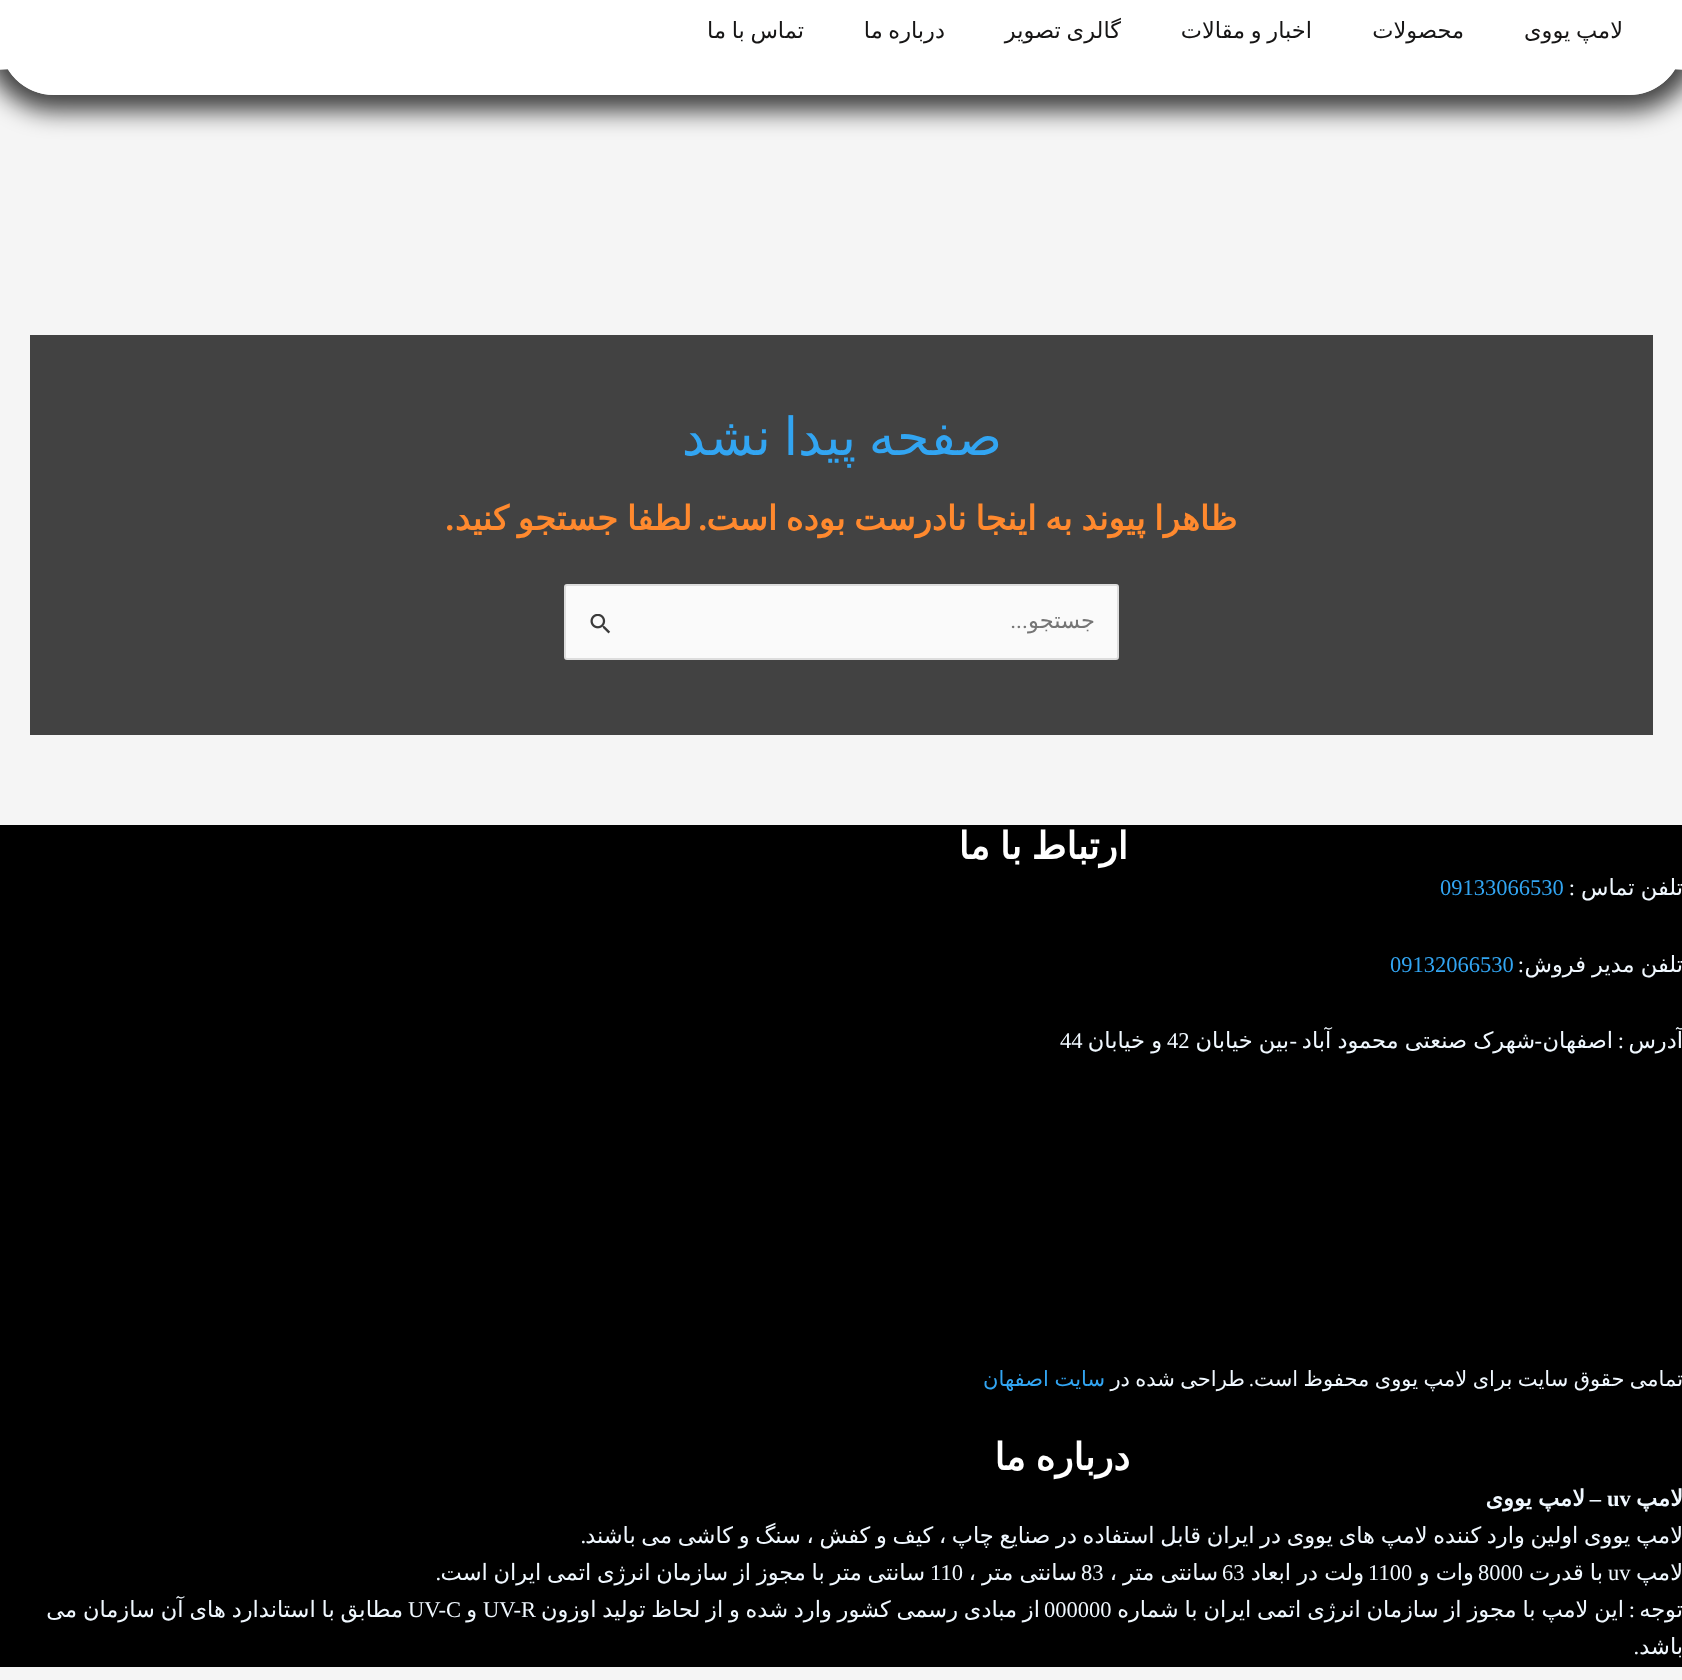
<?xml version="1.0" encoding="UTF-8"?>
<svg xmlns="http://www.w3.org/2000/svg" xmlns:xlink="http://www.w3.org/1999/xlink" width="1682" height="1680">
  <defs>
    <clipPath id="clip1"><path d="M 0 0 h 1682 v 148 h -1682 z m 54 -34 h 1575 c 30 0 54 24 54 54 v 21 c 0 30 -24 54 -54 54 h -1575 c -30 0 -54 -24 -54 -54 v -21 c 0 -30 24 -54 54 -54 z" clip-rule="evenodd" /></clipPath>
  </defs>
  <rect width="100%" height="100%" fill="#f5f5f5" />
  <g clip-path="url(#clip1)">
    <rect x="-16" y="-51" width="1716" height="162" rx="71" fill="#000000" fill-opacity="0.74" filter="blur(12px)" />
  </g>
  <rect y="-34" width="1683" height="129" rx="54" fill="#ffffff" fill-opacity="0.92" />
  <rect x="30" y="335" width="1623" height="400" fill="#424242" />
  <rect x="565" y="585" width="553" height="74" rx="2" fill="#fafafa" stroke="#dddddd" stroke-width="2" />
  <image x="590" y="614" width="21" height="20" xlink:href="image1.png" />
  <rect y="825" width="1682" height="842" fill="#000000" />
  <path d="M -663 87 c 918 1 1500 -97 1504 -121 c 5 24 587 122 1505 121 c 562 0 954 1 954 1 v -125 l -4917 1 v 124 z" fill="#ffffff" />
  <text x="1623" y="38" word-spacing="-1.5" style="font-family: DejaVu Sans; font-size: 22.5px; direction: rtl; fill: #161515">لامپ یووی</text>
  <text x="1464" y="38" style="font-family: DejaVu Sans; font-size: 22.5px; direction: rtl; fill: #161515">محصولات</text>
  <text x="1312" y="38" word-spacing="-1.5" style="font-family: DejaVu Sans; font-size: 22.5px; direction: rtl; fill: #161515">اخبار و مقالات</text>
  <text x="1121" y="38" word-spacing="-1.5" style="font-family: DejaVu Sans; font-size: 22.5px; direction: rtl; fill: #161515">گالری تصویر</text>
  <text x="945" y="38" word-spacing="-1.5" style="font-family: DejaVu Sans; font-size: 22.5px; direction: rtl; fill: #161515">درباره ما</text>
  <text x="804" y="38" word-spacing="-1.5" style="font-family: DejaVu Sans; font-size: 22.5px; direction: rtl; fill: #161515">تماس با ما</text>
  <text x="1002" y="455" word-spacing="-4" style="font-family: DejaVu Sans; font-size: 52.5px; direction: rtl; fill: #32a5f2">صفحه پیدا نشد</text>
  <text x="1237" y="530" word-spacing="-2" style="font-family: DejaVu Sans; font-size: 33.75px; font-weight: bold; direction: rtl; fill: #ff892e">ظاهرا پیوند به اینجا نادرست بوده است</text>
  <text x="707" y="530" style="font-family: Liberation Serif; font-size: 33.75px; font-weight: bold; direction: rtl; fill: #ff892e">.</text>
  <text x="692" y="530" word-spacing="-2" style="font-family: DejaVu Sans; font-size: 33.75px; font-weight: bold; direction: rtl; fill: #ff892e">لطفا جستجو کنید</text>
  <text x="454" y="530" style="font-family: Liberation Serif; font-size: 33.75px; font-weight: bold; direction: rtl; fill: #ff892e">.</text>
  <text x="1095" y="628" style="font-family: DejaVu Sans; font-size: 22.5px; direction: rtl; fill: #757575">جستجو</text>
  <text x="1028" y="628" style="font-family: Roboto; font-size: 22.5px; direction: rtl; fill: #757575">...</text>
  <text x="1128" y="859" word-spacing="-2" style="font-family: DejaVu Sans; font-size: 37.5px; font-weight: bold; direction: rtl; fill: #ffffff">ارتباط با ما</text>
  <text x="1683" y="895" word-spacing="-1" style="font-family: DejaVu Sans; font-size: 22.5px; direction: rtl; fill: #f0f8ff">تلفن تماس</text>
  <text x="1575" y="895" style="font-family: Liberation Serif; font-size: 22.5px; direction: rtl; fill: #f0f8ff">:</text>
  <text x="1440" y="895" style="font-family: Liberation Serif; font-size: 22.5px; fill: #32a5f2">09133066530</text>
  <text x="1683" y="972" word-spacing="-1" style="font-family: DejaVu Sans; font-size: 22.5px; direction: rtl; fill: #f0f8ff">تلفن مدیر فروش</text>
  <text x="1524" y="972" style="font-family: Liberation Serif; font-size: 22.5px; direction: rtl; fill: #f0f8ff">:</text>
  <text x="1390" y="972" style="font-family: Liberation Serif; font-size: 22.5px; fill: #32a5f2">09132066530</text>
  <text x="1683" y="1048" style="font-family: DejaVu Sans; font-size: 22.5px; direction: rtl; fill: #f0f8ff">آدرس</text>
  <text x="1624" y="1048" style="font-family: Liberation Serif; font-size: 22.5px; direction: rtl; fill: #f0f8ff">:</text>
  <text x="1613" y="1048" style="font-family: DejaVu Sans; font-size: 22.5px; direction: rtl; fill: #f0f8ff">اصفهان</text>
  <text x="1542" y="1048" style="font-family: Liberation Serif; font-size: 22.5px; direction: rtl; fill: #f0f8ff">-</text>
  <text x="1535" y="1048" word-spacing="-1" style="font-family: DejaVu Sans; font-size: 22.5px; direction: rtl; fill: #f0f8ff">شهرک صنعتی محمود آباد</text>
  <text x="1297" y="1048" style="font-family: Liberation Serif; font-size: 22.5px; direction: rtl; fill: #f0f8ff">-</text>
  <text x="1289" y="1048" word-spacing="-1" style="font-family: DejaVu Sans; font-size: 22.5px; direction: rtl; fill: #f0f8ff">بین خیابان</text>
  <text x="1167" y="1048" style="font-family: Liberation Serif; font-size: 22.5px; fill: #f0f8ff">42</text>
  <text x="1162" y="1048" word-spacing="-1" style="font-family: DejaVu Sans; font-size: 22.5px; direction: rtl; fill: #f0f8ff">و خیابان</text>
  <text x="1060" y="1048" style="font-family: Liberation Serif; font-size: 22.5px; fill: #f0f8ff">44</text>
  <text x="1683" y="1386" word-spacing="-1.25" style="font-family: DejaVu Sans; font-size: 21px; direction: rtl; fill: #f0f8ff">تمامی حقوق سایت برای لامپ یووی محفوظ است</text>
  <text x="1254" y="1386" style="font-family: Liberation Serif; font-size: 21px; direction: rtl; fill: #f0f8ff">.</text>
  <text x="1245" y="1386" word-spacing="-1.25" style="font-family: DejaVu Sans; font-size: 21px; direction: rtl; fill: #f0f8ff">طراحی شده در</text>
  <text x="1105" y="1386" word-spacing="-1" style="font-family: DejaVu Sans; font-size: 21px; direction: rtl; fill: #32a5f2">سایت اصفهان</text>
  <text x="1130" y="1470" word-spacing="-2" style="font-family: DejaVu Sans; font-size: 37.5px; font-weight: bold; direction: rtl; fill: #ffffff">درباره ما</text>
  <text x="1683" y="1506" style="font-family: DejaVu Sans; font-size: 22.5px; font-weight: bold; direction: rtl; fill: #f0f8ff">لامپ</text>
  <text x="1607" y="1506" style="font-family: Liberation Serif; font-size: 22.5px; font-weight: bold; fill: #f0f8ff">uv</text>
  <text x="1601" y="1506" style="font-family: Liberation Serif; font-size: 22.5px; font-weight: bold; direction: rtl; fill: #f0f8ff">–</text>
  <text x="1585" y="1506" word-spacing="-1" style="font-family: DejaVu Sans; font-size: 22.5px; font-weight: bold; direction: rtl; fill: #f0f8ff">لامپ یووی</text>
  <text x="1683" y="1543" word-spacing="-1.5" style="font-family: DejaVu Sans; font-size: 22.5px; direction: rtl; fill: #f0f8ff">لامپ یووی اولین وارد کننده لامپ های یووی در ایران قابل استفاده در صنایع چاپ ، کیف و کفش ، سنگ و کاشی می باشند</text>
  <text x="586" y="1543" style="font-family: Liberation Serif; font-size: 22.5px; direction: rtl; fill: #f0f8ff">.</text>
  <text x="1683" y="1580" style="font-family: DejaVu Sans; font-size: 22.5px; direction: rtl; fill: #f0f8ff">لامپ</text>
  <text x="1608" y="1580" style="font-family: Liberation Serif; font-size: 22.5px; fill: #f0f8ff">uv</text>
  <text x="1603" y="1580" word-spacing="-1" style="font-family: DejaVu Sans; font-size: 22.5px; direction: rtl; fill: #f0f8ff">با قدرت</text>
  <text x="1478" y="1580" style="font-family: Liberation Serif; font-size: 22.5px; fill: #f0f8ff">8000</text>
  <text x="1474" y="1580" word-spacing="-1" style="font-family: DejaVu Sans; font-size: 22.5px; direction: rtl; fill: #f0f8ff">وات و</text>
  <text x="1368" y="1580" style="font-family: Liberation Serif; font-size: 22.5px; fill: #f0f8ff">1100</text>
  <text x="1364" y="1580" word-spacing="-1" style="font-family: DejaVu Sans; font-size: 22.5px; direction: rtl; fill: #f0f8ff">ولت در ابعاد</text>
  <text x="1222" y="1580" style="font-family: Liberation Serif; font-size: 22.5px; fill: #f0f8ff">63</text>
  <text x="1218" y="1580" word-spacing="-1" style="font-family: DejaVu Sans; font-size: 22.5px; direction: rtl; fill: #f0f8ff">سانتی متر ،</text>
  <text x="1081" y="1580" style="font-family: Liberation Serif; font-size: 22.5px; fill: #f0f8ff">83</text>
  <text x="1077" y="1580" word-spacing="-1" style="font-family: DejaVu Sans; font-size: 22.5px; direction: rtl; fill: #f0f8ff">سانتی متر ،</text>
  <text x="930" y="1580" style="font-family: Liberation Serif; font-size: 22.5px; fill: #f0f8ff">110</text>
  <text x="925" y="1580" word-spacing="-1.4" style="font-family: DejaVu Sans; font-size: 22.5px; direction: rtl; fill: #f0f8ff">سانتی متر با مجوز از سازمان انرژی اتمی ایران است</text>
  <text x="441" y="1580" style="font-family: Liberation Serif; font-size: 22.5px; direction: rtl; fill: #f0f8ff">.</text>
  <text x="1683" y="1617" style="font-family: DejaVu Sans; font-size: 22.5px; direction: rtl; fill: #f0f8ff">توجه</text>
  <text x="1635" y="1617" style="font-family: Liberation Serif; font-size: 22.5px; direction: rtl; fill: #f0f8ff">:</text>
  <text x="1624" y="1617" word-spacing="-1.25" style="font-family: DejaVu Sans; font-size: 22.5px; direction: rtl; fill: #f0f8ff">این لامپ با مجوز از سازمان انرژی اتمی ایران با شماره</text>
  <text x="1044" y="1617" style="font-family: Liberation Serif; font-size: 22.5px; fill: #f0f8ff">000000</text>
  <text x="1040" y="1617" word-spacing="-1.4" style="font-family: DejaVu Sans; font-size: 22.5px; direction: rtl; fill: #f0f8ff">از مبادی رسمی کشور وارد شده و از لحاظ تولید اوزون</text>
  <text x="483" y="1617" style="font-family: Liberation Serif; font-size: 22.5px; fill: #f0f8ff">UV-R</text>
  <text x="477" y="1617" style="font-family: DejaVu Sans; font-size: 22.5px; direction: rtl; fill: #f0f8ff">و</text>
  <text x="408" y="1617" style="font-family: Liberation Serif; font-size: 22.5px; fill: #f0f8ff">UV-C</text>
  <text x="403" y="1617" word-spacing="-1.25" style="font-family: DejaVu Sans; font-size: 22.5px; direction: rtl; fill: #f0f8ff">مطابق با استاندارد های آن سازمان می</text>
  <text x="1683" y="1654" style="font-family: DejaVu Sans; font-size: 22.5px; direction: rtl; fill: #f0f8ff">باشد</text>
  <text x="1639" y="1654" style="font-family: Liberation Serif; font-size: 22.5px; direction: rtl; fill: #f0f8ff">.</text>
</svg>
